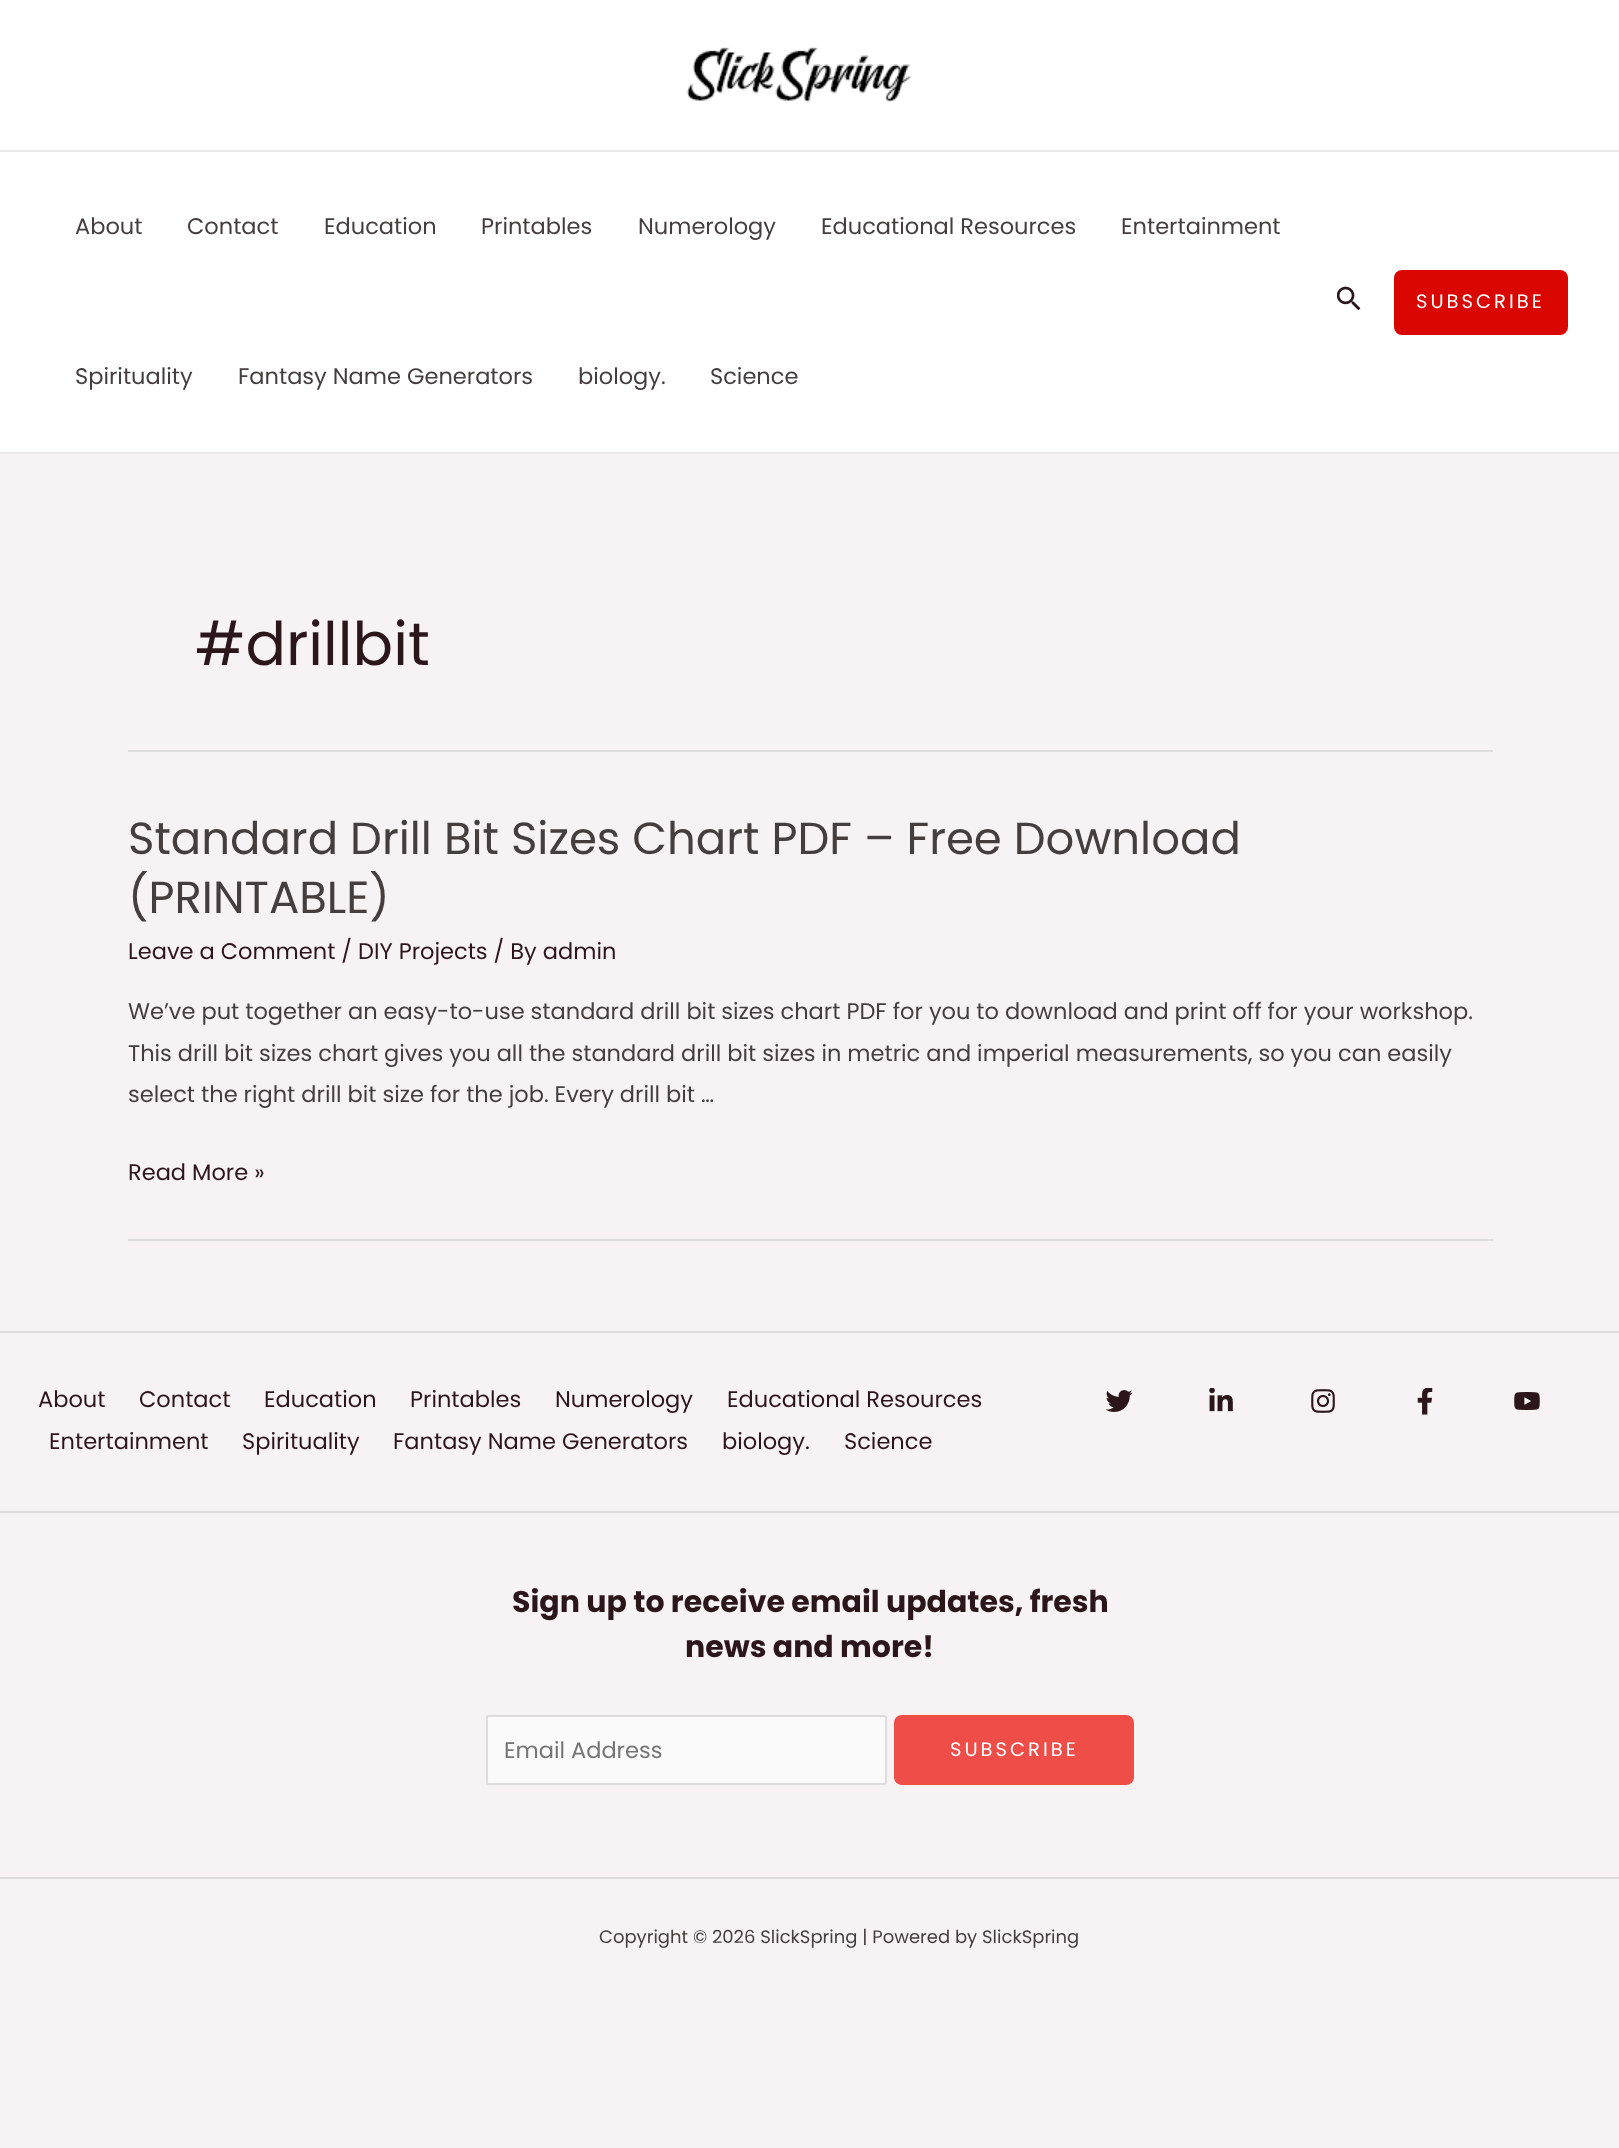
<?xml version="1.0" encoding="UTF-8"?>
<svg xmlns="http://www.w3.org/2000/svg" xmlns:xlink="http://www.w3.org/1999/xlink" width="1619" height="2148">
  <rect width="100%" height="100%" fill="#f7f3f5" />
  <rect width="1619" height="150" fill="#ffffff" />
  <rect y="150" width="1619" height="2" fill="#eaeaea" />
  <image x="686" y="47" width="226" height="56" xlink:href="image1.png" />
  <rect y="152" width="1619" height="300" fill="#ffffff" />
  <rect y="452" width="1619" height="2" fill="#eaeaea" />
  <image x="1337" y="286" width="24" height="25" xlink:href="image2.png" />
  <rect x="1394" y="270" width="174" height="65" rx="8" fill="#d90700" />
  <rect x="128" y="750" width="1365" height="2" fill="#dddddd" />
  <rect x="128" y="1239" width="1365" height="2" fill="#dddddd" />
  <rect y="1331" width="1619" height="2" fill="#dedbdd" />
  <image x="1106" y="1390" width="27" height="22" xlink:href="image3.png" />
  <image x="1209" y="1388" width="24" height="24" xlink:href="image4.png" />
  <image x="1311" y="1389" width="24" height="24" xlink:href="image5.png" />
  <image x="1417" y="1388" width="16" height="27" xlink:href="image6.png" />
  <image x="1514" y="1392" width="26" height="18" xlink:href="image7.png" />
  <rect y="1511" width="1619" height="2" fill="#dedbdd" />
  <rect x="487" y="1716" width="399" height="68" rx="2" fill="#fafafa" stroke="#dddddd" stroke-width="2" />
  <rect x="894" y="1715" width="240" height="70" rx="8" fill="#ef4d48" />
  <rect y="1877" width="1619" height="2" fill="#dedbdd" />
  <text x="75" y="234" style="font-family: Poppins; font-size: 22.5px; fill: #453e3e">About</text>
  <text x="187" y="234" style="font-family: Poppins; font-size: 22.5px; fill: #453e3e">Contact</text>
  <text x="324" y="234" style="font-family: Poppins; font-size: 22.5px; fill: #453e3e">Education</text>
  <text x="481" y="234" style="font-family: Poppins; font-size: 22.5px; fill: #453e3e">Printables</text>
  <text x="638" y="234" style="font-family: Poppins; font-size: 22.5px; fill: #453e3e">Numerology</text>
  <text x="821" y="234" style="font-family: Poppins; font-size: 22.5px; fill: #453e3e">Educational Resources</text>
  <text x="1121" y="234" style="font-family: Poppins; font-size: 22.5px; fill: #453e3e">Entertainment</text>
  <text x="75" y="384" style="font-family: Poppins; font-size: 22.5px; fill: #453e3e">Spirituality</text>
  <text x="238" y="384" style="font-family: Poppins; font-size: 22.5px; fill: #453e3e">Fantasy Name Generators</text>
  <text x="578" y="384" style="font-family: Poppins; font-size: 22.5px; fill: #453e3e">biology.</text>
  <text x="710" y="384" style="font-family: Poppins; font-size: 22.5px; fill: #453e3e">Science</text>
  <text x="1416" y="308" style="font-family: Poppins; font-size: 19.5px; letter-spacing: 3px; fill: #ffffff">SUBSCRIBE</text>
  <text x="195" y="665" style="font-family: Poppins; font-size: 60px; fill: #2b161b">#drillbit</text>
  <text x="128" y="854" style="font-family: Poppins; font-size: 45px; fill: #453e3e">Standard Drill Bit Sizes Chart PDF – Free Download</text>
  <text x="128" y="913" style="font-family: Poppins; font-size: 45px; fill: #453e3e">(PRINTABLE)</text>
  <text x="128" y="959" style="font-family: Poppins; font-size: 22.5px; fill: #2b161b">Leave a Comment / DIY Projects / By admin</text>
  <text x="128" y="1019" style="font-family: Poppins; font-size: 22.5px; fill: #453e3e">We’ve put together an easy-to-use standard drill bit sizes chart PDF for you to download and print off for your workshop.</text>
  <text x="128" y="1061" style="font-family: Poppins; font-size: 22.5px; fill: #453e3e">This drill bit sizes chart gives you all the standard drill bit sizes in metric and imperial measurements, so you can easily</text>
  <text x="128" y="1102" style="font-family: Poppins; font-size: 22.5px; fill: #453e3e">select the right drill bit size for the job. Every drill bit …</text>
  <text x="128" y="1180" style="font-family: Poppins; font-size: 22.5px; fill: #2b161b">Read More »</text>
  <text x="38" y="1407" style="font-family: Poppins; font-size: 22.5px; fill: #2b161b">About</text>
  <text x="139" y="1407" style="font-family: Poppins; font-size: 22.5px; fill: #2b161b">Contact</text>
  <text x="264" y="1407" style="font-family: Poppins; font-size: 22.5px; fill: #2b161b">Education</text>
  <text x="410" y="1407" style="font-family: Poppins; font-size: 22.5px; fill: #2b161b">Printables</text>
  <text x="555" y="1407" style="font-family: Poppins; font-size: 22.5px; fill: #2b161b">Numerology</text>
  <text x="727" y="1407" style="font-family: Poppins; font-size: 22.5px; fill: #2b161b">Educational Resources</text>
  <text x="49" y="1449" style="font-family: Poppins; font-size: 22.5px; fill: #2b161b">Entertainment</text>
  <text x="242" y="1449" style="font-family: Poppins; font-size: 22.5px; fill: #2b161b">Spirituality</text>
  <text x="393" y="1449" style="font-family: Poppins; font-size: 22.5px; fill: #2b161b">Fantasy Name Generators</text>
  <text x="722" y="1449" style="font-family: Poppins; font-size: 22.5px; fill: #2b161b">biology.</text>
  <text x="844" y="1449" style="font-family: Poppins; font-size: 22.5px; fill: #2b161b">Science</text>
  <text x="512" y="1612" style="font-family: Poppins; font-size: 30px; font-weight: bold; fill: #2b161b">Sign up to receive email updates, fresh</text>
  <text x="685" y="1657" style="font-family: Poppins; font-size: 30px; font-weight: bold; fill: #2b161b">news and more!</text>
  <text x="504" y="1758" style="font-family: Poppins; font-size: 22.5px; fill: #757575">Email Address</text>
  <text x="950" y="1756" style="font-family: Poppins; font-size: 19.5px; letter-spacing: 3px; fill: #ffffff">SUBSCRIBE</text>
  <text x="599" y="1943" style="font-family: Poppins; font-size: 18px; fill: #453e3e">Copyright © 2026 SlickSpring | Powered by SlickSpring</text>
</svg>
